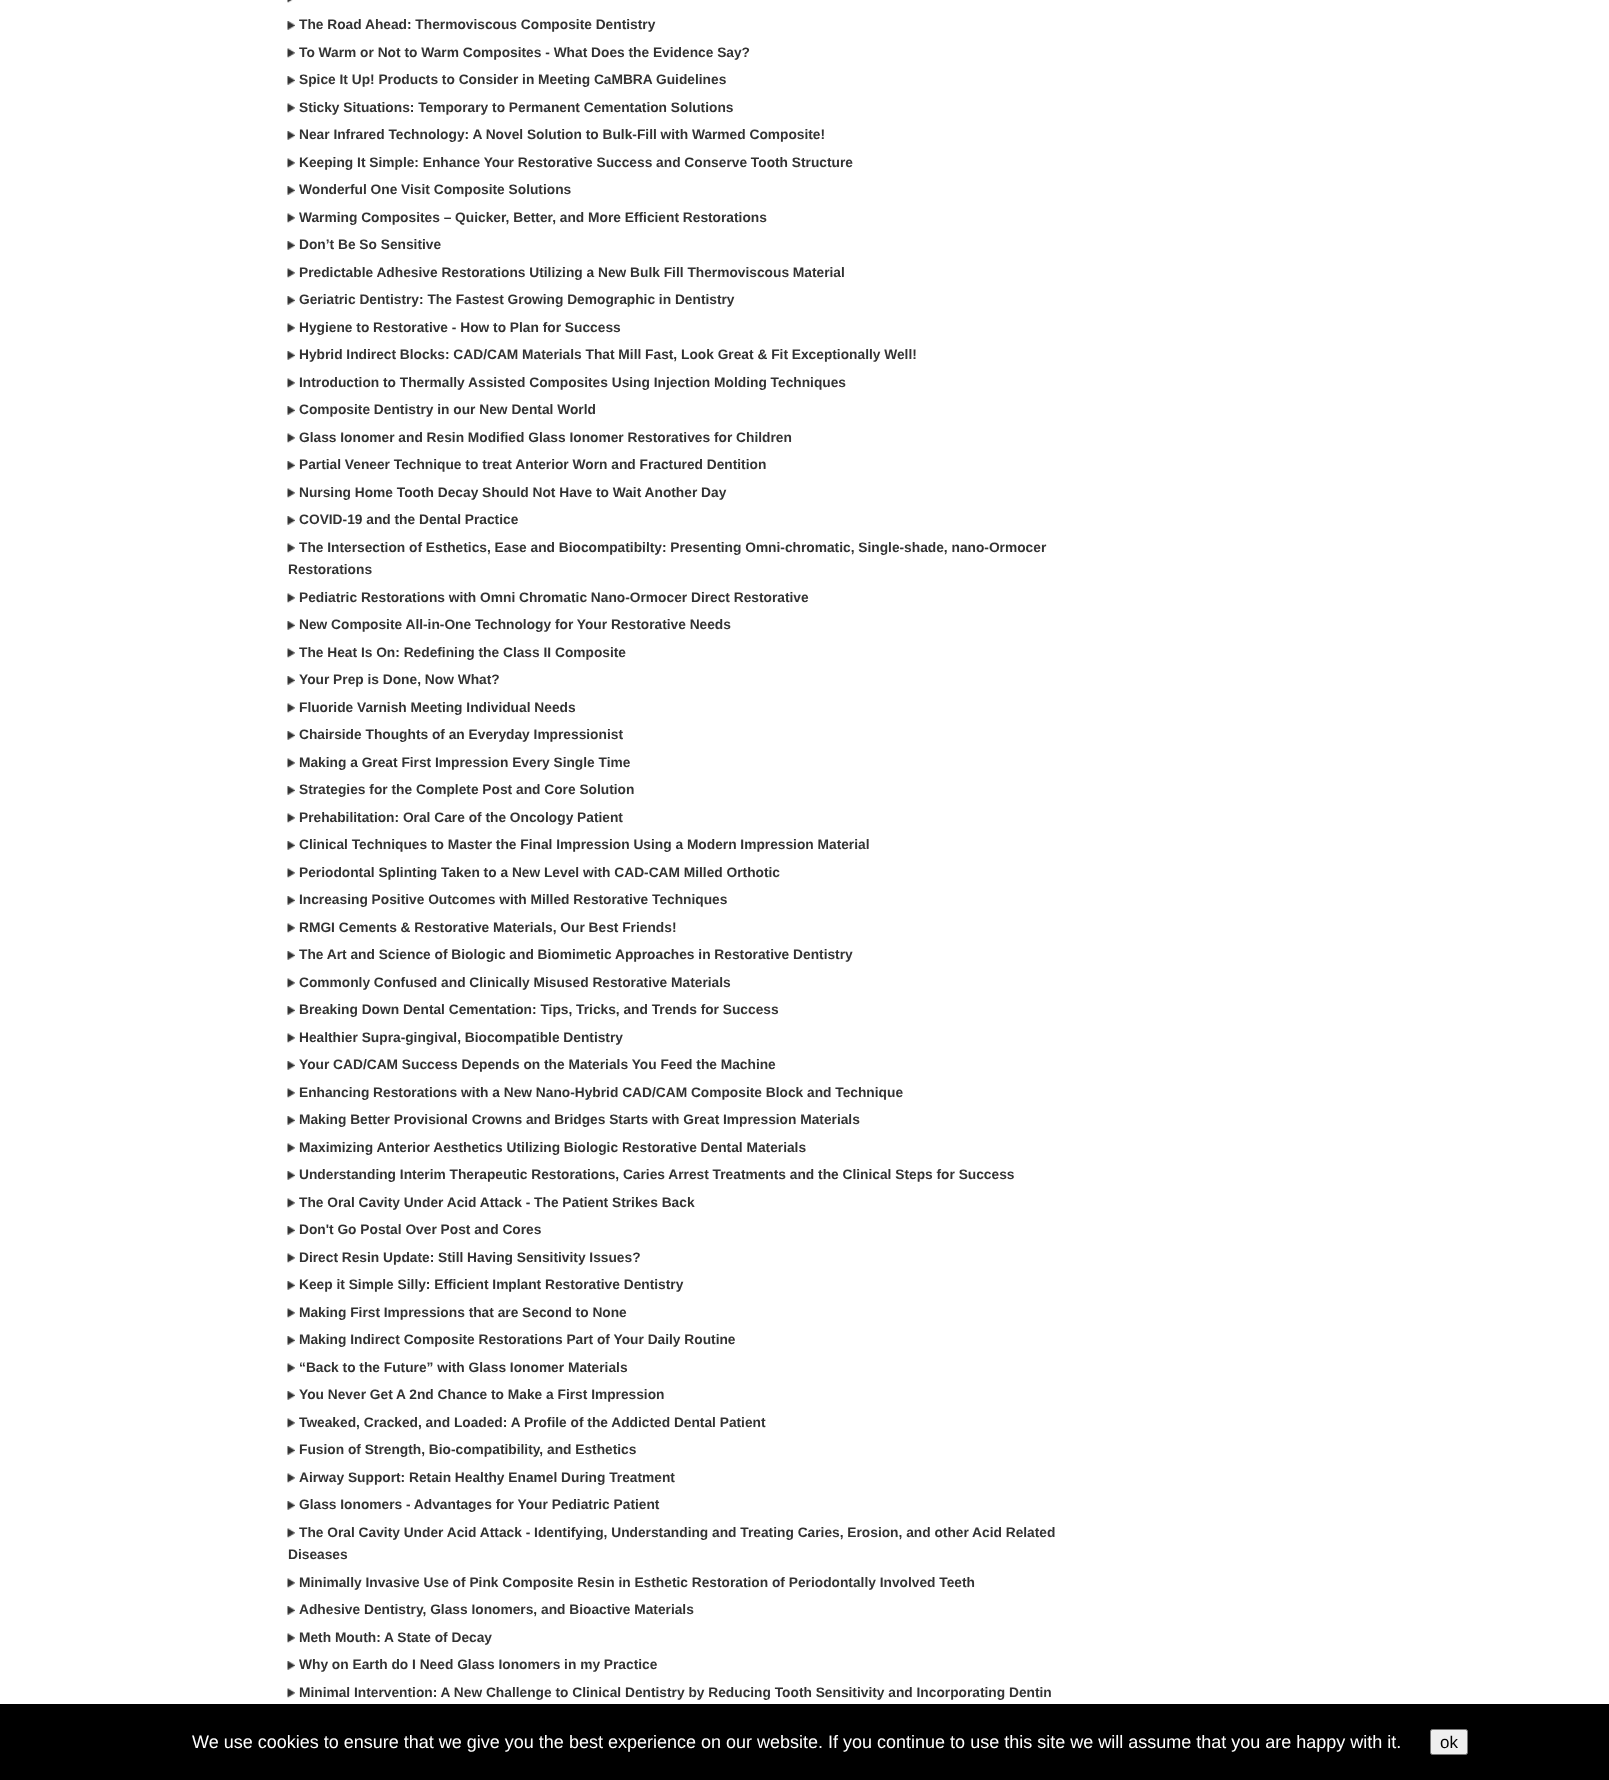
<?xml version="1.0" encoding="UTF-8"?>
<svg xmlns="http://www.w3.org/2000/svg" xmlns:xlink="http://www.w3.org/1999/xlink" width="1609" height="1780">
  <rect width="100%" height="100%" fill="#ffffff" />
  <image x="287" y="0" width="6" height="3" xlink:href="image1.png" />
  <image x="287" y="21" width="8" height="9" xlink:href="image2.png" />
  <image x="287" y="48" width="8" height="10" xlink:href="image3.png" />
  <image x="287" y="76" width="8" height="9" xlink:href="image2.png" />
  <image x="287" y="103" width="8" height="10" xlink:href="image3.png" />
  <image x="287" y="131" width="8" height="9" xlink:href="image2.png" />
  <image x="287" y="158" width="8" height="10" xlink:href="image3.png" />
  <image x="287" y="186" width="8" height="9" xlink:href="image2.png" />
  <image x="287" y="213" width="8" height="10" xlink:href="image3.png" />
  <image x="287" y="241" width="8" height="9" xlink:href="image2.png" />
  <image x="287" y="268" width="8" height="10" xlink:href="image3.png" />
  <image x="287" y="296" width="8" height="9" xlink:href="image2.png" />
  <image x="287" y="323" width="8" height="10" xlink:href="image3.png" />
  <image x="287" y="351" width="8" height="9" xlink:href="image2.png" />
  <image x="287" y="378" width="8" height="10" xlink:href="image3.png" />
  <image x="287" y="406" width="8" height="9" xlink:href="image2.png" />
  <image x="287" y="433" width="8" height="10" xlink:href="image3.png" />
  <image x="287" y="461" width="8" height="9" xlink:href="image2.png" />
  <image x="287" y="488" width="8" height="10" xlink:href="image3.png" />
  <image x="287" y="516" width="8" height="9" xlink:href="image2.png" />
  <image x="287" y="543" width="8" height="10" xlink:href="image3.png" />
  <image x="287" y="593" width="8" height="10" xlink:href="image3.png" />
  <image x="287" y="621" width="8" height="9" xlink:href="image2.png" />
  <image x="287" y="648" width="8" height="10" xlink:href="image3.png" />
  <image x="287" y="676" width="8" height="9" xlink:href="image2.png" />
  <image x="287" y="703" width="8" height="10" xlink:href="image3.png" />
  <image x="287" y="731" width="8" height="9" xlink:href="image2.png" />
  <image x="287" y="758" width="8" height="10" xlink:href="image4.png" />
  <image x="287" y="786" width="8" height="9" xlink:href="image2.png" />
  <image x="287" y="813" width="8" height="10" xlink:href="image3.png" />
  <image x="287" y="841" width="8" height="9" xlink:href="image2.png" />
  <image x="287" y="868" width="8" height="10" xlink:href="image3.png" />
  <image x="287" y="896" width="8" height="9" xlink:href="image2.png" />
  <image x="287" y="923" width="8" height="10" xlink:href="image3.png" />
  <image x="287" y="951" width="8" height="9" xlink:href="image2.png" />
  <image x="287" y="978" width="8" height="10" xlink:href="image3.png" />
  <image x="287" y="1006" width="8" height="9" xlink:href="image5.png" />
  <image x="287" y="1033" width="8" height="10" xlink:href="image3.png" />
  <image x="287" y="1061" width="8" height="9" xlink:href="image2.png" />
  <image x="287" y="1088" width="8" height="10" xlink:href="image3.png" />
  <image x="287" y="1116" width="8" height="9" xlink:href="image2.png" />
  <image x="287" y="1143" width="8" height="10" xlink:href="image3.png" />
  <image x="287" y="1171" width="8" height="9" xlink:href="image2.png" />
  <image x="287" y="1198" width="8" height="10" xlink:href="image3.png" />
  <image x="287" y="1226" width="8" height="9" xlink:href="image2.png" />
  <image x="287" y="1253" width="8" height="10" xlink:href="image3.png" />
  <image x="287" y="1281" width="8" height="9" xlink:href="image2.png" />
  <image x="287" y="1308" width="8" height="10" xlink:href="image3.png" />
  <image x="287" y="1336" width="8" height="9" xlink:href="image2.png" />
  <image x="287" y="1363" width="8" height="10" xlink:href="image3.png" />
  <image x="287" y="1391" width="8" height="9" xlink:href="image2.png" />
  <image x="287" y="1418" width="8" height="10" xlink:href="image3.png" />
  <image x="287" y="1446" width="8" height="9" xlink:href="image2.png" />
  <image x="287" y="1473" width="8" height="10" xlink:href="image3.png" />
  <image x="287" y="1501" width="8" height="9" xlink:href="image2.png" />
  <image x="287" y="1528" width="8" height="10" xlink:href="image3.png" />
  <image x="287" y="1578" width="8" height="10" xlink:href="image3.png" />
  <image x="287" y="1606" width="8" height="9" xlink:href="image2.png" />
  <image x="287" y="1633" width="8" height="10" xlink:href="image3.png" />
  <image x="287" y="1661" width="8" height="9" xlink:href="image2.png" />
  <image x="287" y="1688" width="8" height="10" xlink:href="image3.png" />
  <rect y="1704" width="1609" height="76" fill="#000000" />
  <rect x="1430.5" y="1729.5" width="37" height="25" rx="2" fill="#efefef" stroke="#767676" />
  <text x="299" y="29" style="font-family: Liberation Sans; font-size: 13.75px; font-weight: bold; fill: #333333">The Road Ahead: Thermoviscous Composite Dentistry</text>
  <text x="299" y="57" style="font-family: Liberation Sans; font-size: 13.75px; font-weight: bold; fill: #333333">To Warm or Not to Warm Composites - What Does the Evidence Say?</text>
  <text x="299" y="84" style="font-family: Liberation Sans; font-size: 13.75px; font-weight: bold; fill: #333333">Spice It Up! Products to Consider in Meeting CaMBRA Guidelines</text>
  <text x="299" y="112" style="font-family: Liberation Sans; font-size: 13.75px; font-weight: bold; fill: #333333">Sticky Situations: Temporary to Permanent Cementation Solutions</text>
  <text x="299" y="139" style="font-family: Liberation Sans; font-size: 13.75px; font-weight: bold; fill: #333333">Near Infrared Technology: A Novel Solution to Bulk-Fill with Warmed Composite!</text>
  <text x="299" y="167" style="font-family: Liberation Sans; font-size: 13.75px; font-weight: bold; fill: #333333">Keeping It Simple: Enhance Your Restorative Success and Conserve Tooth Structure</text>
  <text x="299" y="194" style="font-family: Liberation Sans; font-size: 13.75px; font-weight: bold; fill: #333333">Wonderful One Visit Composite Solutions</text>
  <text x="299" y="222" style="font-family: Liberation Sans; font-size: 13.75px; font-weight: bold; fill: #333333">Warming Composites – Quicker, Better, and More Efficient Restorations</text>
  <text x="299" y="249" style="font-family: Liberation Sans; font-size: 13.75px; font-weight: bold; fill: #333333">Don’t Be So Sensitive</text>
  <text x="299" y="277" style="font-family: Liberation Sans; font-size: 13.75px; font-weight: bold; fill: #333333">Predictable Adhesive Restorations Utilizing a New Bulk Fill Thermoviscous Material</text>
  <text x="299" y="304" style="font-family: Liberation Sans; font-size: 13.75px; font-weight: bold; fill: #333333">Geriatric Dentistry: The Fastest Growing Demographic in Dentistry</text>
  <text x="299" y="332" style="font-family: Liberation Sans; font-size: 13.75px; font-weight: bold; fill: #333333">Hygiene to Restorative - How to Plan for Success</text>
  <text x="299" y="359" style="font-family: Liberation Sans; font-size: 13.75px; font-weight: bold; fill: #333333">Hybrid Indirect Blocks: CAD/CAM Materials That Mill Fast, Look Great &amp; Fit Exceptionally Well!</text>
  <text x="299" y="387" style="font-family: Liberation Sans; font-size: 13.75px; font-weight: bold; fill: #333333">Introduction to Thermally Assisted Composites Using Injection Molding Techniques</text>
  <text x="299" y="414" style="font-family: Liberation Sans; font-size: 13.75px; font-weight: bold; fill: #333333">Composite Dentistry in our New Dental World</text>
  <text x="299" y="442" style="font-family: Liberation Sans; font-size: 13.75px; font-weight: bold; fill: #333333">Glass Ionomer and Resin Modified Glass Ionomer Restoratives for Children</text>
  <text x="299" y="469" style="font-family: Liberation Sans; font-size: 13.75px; font-weight: bold; fill: #333333">Partial Veneer Technique to treat Anterior Worn and Fractured Dentition</text>
  <text x="299" y="497" style="font-family: Liberation Sans; font-size: 13.75px; font-weight: bold; fill: #333333">Nursing Home Tooth Decay Should Not Have to Wait Another Day</text>
  <text x="299" y="524" style="font-family: Liberation Sans; font-size: 13.75px; font-weight: bold; fill: #333333">COVID-19 and the Dental Practice</text>
  <text x="299" y="552" style="font-family: Liberation Sans; font-size: 13.75px; font-weight: bold; fill: #333333">The Intersection of Esthetics, Ease and Biocompatibilty: Presenting Omni-chromatic, Single-shade, nano-Ormocer</text>
  <text x="288" y="574" style="font-family: Liberation Sans; font-size: 13.75px; font-weight: bold; fill: #333333">Restorations</text>
  <text x="299" y="602" style="font-family: Liberation Sans; font-size: 13.75px; font-weight: bold; fill: #333333">Pediatric Restorations with Omni Chromatic Nano-Ormocer Direct Restorative</text>
  <text x="299" y="629" style="font-family: Liberation Sans; font-size: 13.75px; font-weight: bold; fill: #333333">New Composite All-in-One Technology for Your Restorative Needs</text>
  <text x="299" y="657" style="font-family: Liberation Sans; font-size: 13.75px; font-weight: bold; fill: #333333">The Heat Is On: Redefining the Class II Composite</text>
  <text x="299" y="684" style="font-family: Liberation Sans; font-size: 13.75px; font-weight: bold; fill: #333333">Your Prep is Done, Now What?</text>
  <text x="299" y="712" style="font-family: Liberation Sans; font-size: 13.75px; font-weight: bold; fill: #333333">Fluoride Varnish Meeting Individual Needs</text>
  <text x="299" y="739" style="font-family: Liberation Sans; font-size: 13.75px; font-weight: bold; fill: #333333">Chairside Thoughts of an Everyday Impressionist</text>
  <text x="299" y="767" style="font-family: Liberation Sans; font-size: 13.75px; font-weight: bold; fill: #333333">Making a Great First Impression Every Single Time</text>
  <text x="299" y="794" style="font-family: Liberation Sans; font-size: 13.75px; font-weight: bold; fill: #333333">Strategies for the Complete Post and Core Solution</text>
  <text x="299" y="822" style="font-family: Liberation Sans; font-size: 13.75px; font-weight: bold; fill: #333333">Prehabilitation: Oral Care of the Oncology Patient</text>
  <text x="299" y="849" style="font-family: Liberation Sans; font-size: 13.75px; font-weight: bold; fill: #333333">Clinical Techniques to Master the Final Impression Using a Modern Impression Material</text>
  <text x="299" y="877" style="font-family: Liberation Sans; font-size: 13.75px; font-weight: bold; fill: #333333">Periodontal Splinting Taken to a New Level with CAD-CAM Milled Orthotic</text>
  <text x="299" y="904" style="font-family: Liberation Sans; font-size: 13.75px; font-weight: bold; fill: #333333">Increasing Positive Outcomes with Milled Restorative Techniques</text>
  <text x="299" y="932" style="font-family: Liberation Sans; font-size: 13.75px; font-weight: bold; fill: #333333">RMGI Cements &amp; Restorative Materials, Our Best Friends!</text>
  <text x="299" y="959" style="font-family: Liberation Sans; font-size: 13.75px; font-weight: bold; fill: #333333">The Art and Science of Biologic and Biomimetic Approaches in Restorative Dentistry</text>
  <text x="299" y="987" style="font-family: Liberation Sans; font-size: 13.75px; font-weight: bold; fill: #333333">Commonly Confused and Clinically Misused Restorative Materials</text>
  <text x="299" y="1014" style="font-family: Liberation Sans; font-size: 13.75px; font-weight: bold; fill: #333333">Breaking Down Dental Cementation: Tips, Tricks, and Trends for Success</text>
  <text x="299" y="1042" style="font-family: Liberation Sans; font-size: 13.75px; font-weight: bold; fill: #333333">Healthier Supra-gingival, Biocompatible Dentistry</text>
  <text x="299" y="1069" style="font-family: Liberation Sans; font-size: 13.75px; font-weight: bold; fill: #333333">Your CAD/CAM Success Depends on the Materials You Feed the Machine</text>
  <text x="299" y="1097" style="font-family: Liberation Sans; font-size: 13.75px; font-weight: bold; fill: #333333">Enhancing Restorations with a New Nano-Hybrid CAD/CAM Composite Block and Technique</text>
  <text x="299" y="1124" style="font-family: Liberation Sans; font-size: 13.75px; font-weight: bold; fill: #333333">Making Better Provisional Crowns and Bridges Starts with Great Impression Materials</text>
  <text x="299" y="1152" style="font-family: Liberation Sans; font-size: 13.75px; font-weight: bold; fill: #333333">Maximizing Anterior Aesthetics Utilizing Biologic Restorative Dental Materials</text>
  <text x="299" y="1179" style="font-family: Liberation Sans; font-size: 13.75px; font-weight: bold; fill: #333333">Understanding Interim Therapeutic Restorations, Caries Arrest Treatments and the Clinical Steps for Success</text>
  <text x="299" y="1207" style="font-family: Liberation Sans; font-size: 13.75px; font-weight: bold; fill: #333333">The Oral Cavity Under Acid Attack - The Patient Strikes Back</text>
  <text x="299" y="1234" style="font-family: Liberation Sans; font-size: 13.75px; font-weight: bold; fill: #333333">Don't Go Postal Over Post and Cores</text>
  <text x="299" y="1262" style="font-family: Liberation Sans; font-size: 13.75px; font-weight: bold; fill: #333333">Direct Resin Update: Still Having Sensitivity Issues?</text>
  <text x="299" y="1289" style="font-family: Liberation Sans; font-size: 13.75px; font-weight: bold; fill: #333333">Keep it Simple Silly: Efficient Implant Restorative Dentistry</text>
  <text x="299" y="1317" style="font-family: Liberation Sans; font-size: 13.75px; font-weight: bold; fill: #333333">Making First Impressions that are Second to None</text>
  <text x="299" y="1344" style="font-family: Liberation Sans; font-size: 13.75px; font-weight: bold; fill: #333333">Making Indirect Composite Restorations Part of Your Daily Routine</text>
  <text x="299" y="1372" style="font-family: Liberation Sans; font-size: 13.75px; font-weight: bold; fill: #333333">“Back to the Future” with Glass Ionomer Materials</text>
  <text x="299" y="1399" style="font-family: Liberation Sans; font-size: 13.75px; font-weight: bold; fill: #333333">You Never Get A 2nd Chance to Make a First Impression</text>
  <text x="299" y="1427" style="font-family: Liberation Sans; font-size: 13.75px; font-weight: bold; fill: #333333">Tweaked, Cracked, and Loaded: A Profile of the Addicted Dental Patient</text>
  <text x="299" y="1454" style="font-family: Liberation Sans; font-size: 13.75px; font-weight: bold; fill: #333333">Fusion of Strength, Bio-compatibility, and Esthetics</text>
  <text x="299" y="1482" style="font-family: Liberation Sans; font-size: 13.75px; font-weight: bold; fill: #333333">Airway Support: Retain Healthy Enamel During Treatment</text>
  <text x="299" y="1509" style="font-family: Liberation Sans; font-size: 13.75px; font-weight: bold; fill: #333333">Glass Ionomers - Advantages for Your Pediatric Patient</text>
  <text x="299" y="1537" style="font-family: Liberation Sans; font-size: 13.75px; font-weight: bold; fill: #333333">The Oral Cavity Under Acid Attack - Identifying, Understanding and Treating Caries, Erosion, and other Acid Related</text>
  <text x="288" y="1559" style="font-family: Liberation Sans; font-size: 13.75px; font-weight: bold; fill: #333333">Diseases</text>
  <text x="299" y="1587" style="font-family: Liberation Sans; font-size: 13.75px; font-weight: bold; fill: #333333">Minimally Invasive Use of Pink Composite Resin in Esthetic Restoration of Periodontally Involved Teeth</text>
  <text x="299" y="1614" style="font-family: Liberation Sans; font-size: 13.75px; font-weight: bold; fill: #333333">Adhesive Dentistry, Glass Ionomers, and Bioactive Materials</text>
  <text x="299" y="1642" style="font-family: Liberation Sans; font-size: 13.75px; font-weight: bold; fill: #333333">Meth Mouth: A State of Decay</text>
  <text x="299" y="1669" style="font-family: Liberation Sans; font-size: 13.75px; font-weight: bold; fill: #333333">Why on Earth do I Need Glass Ionomers in my Practice</text>
  <text x="299" y="1697" style="font-family: Liberation Sans; font-size: 13.75px; font-weight: bold; fill: #333333">Minimal Intervention: A New Challenge to Clinical Dentistry by Reducing Tooth Sensitivity and Incorporating Dentin</text>
  <text x="192" y="1748" style="font-family: Liberation Sans; font-size: 18px; fill: #ffffff">We use cookies to ensure that we give you the best experience on our website. If you continue to use this site we will assume that you are happy with it.</text>
  <text x="1440" y="1748" style="font-family: Liberation Sans; font-size: 17px; fill: #000000">ok</text>
</svg>
